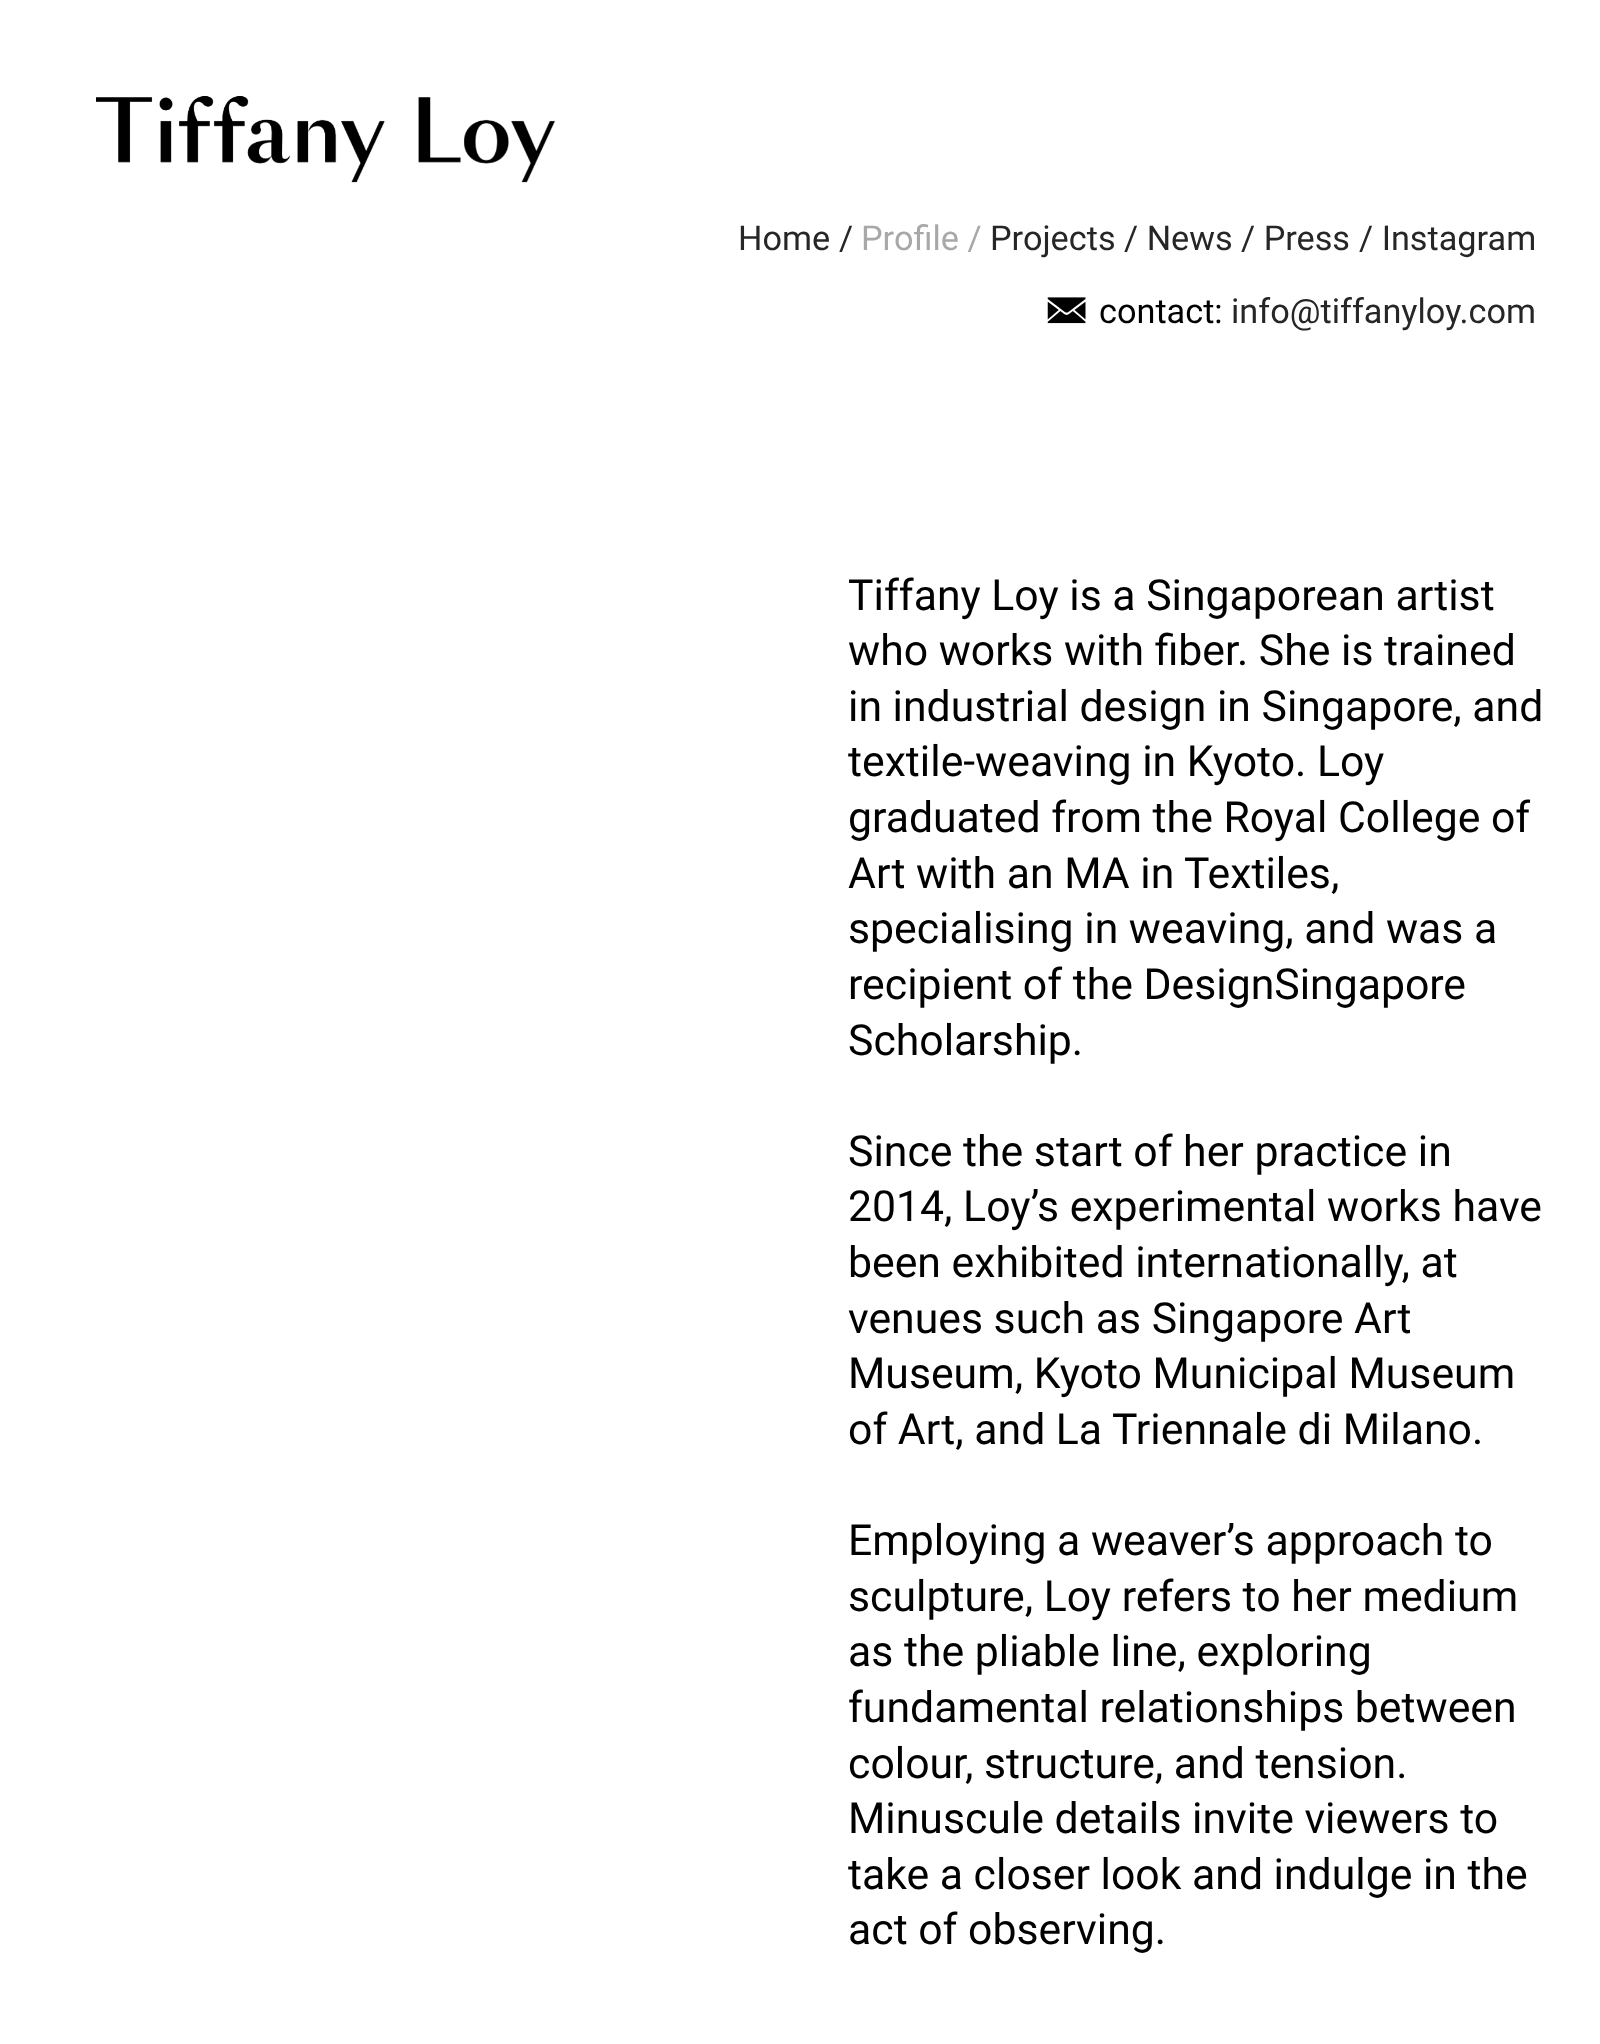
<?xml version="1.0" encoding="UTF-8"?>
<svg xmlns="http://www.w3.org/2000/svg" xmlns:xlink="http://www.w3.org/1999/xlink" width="1600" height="2044">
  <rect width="100%" height="100%" fill="#ffffff" />
  <image x="96" y="96" width="459" height="87" xlink:href="image1.png" />
  <image x="1047" y="297" width="39" height="27" xlink:href="image2.png" />
  <text x="738" y="250" style="font-family: Roboto; font-size: 34.25px; fill: #262626">Home</text>
  <text x="839" y="250" style="font-family: Roboto; font-size: 34.25px; fill: #262626">/</text>
  <text x="861" y="250" style="font-family: Roboto; font-size: 34.25px; fill: #a8a8a8">Profile /</text>
  <text x="990" y="250" style="font-family: Roboto; font-size: 34.25px; fill: #262626">Projects</text>
  <text x="1124" y="250" style="font-family: Roboto; font-size: 34.25px; fill: #262626">/ News</text>
  <text x="1241" y="250" style="font-family: Roboto; font-size: 34.25px; fill: #262626">/ Press</text>
  <text x="1359" y="250" style="font-family: Roboto; font-size: 34.25px; fill: #262626">/ Instagram</text>
  <text x="1099" y="323" style="font-family: Roboto; font-size: 34.25px; fill: #000000">contact:</text>
  <text x="1231" y="323" style="font-family: Roboto; font-size: 34.25px; fill: #262626">info@tiffanyloy.com</text>
  <text x="848" y="610" style="font-family: Roboto; font-size: 42.75px; fill: #000000">Tiffany Loy is a Singaporean artist</text>
  <text x="848" y="665" style="font-family: Roboto; font-size: 42.75px; fill: #000000">who works with fiber. She is trained</text>
  <text x="848" y="721" style="font-family: Roboto; font-size: 42.75px; fill: #000000">in industrial design in Singapore, and</text>
  <text x="848" y="776" style="font-family: Roboto; font-size: 42.75px; fill: #000000">textile-weaving in Kyoto. Loy</text>
  <text x="848" y="832" style="font-family: Roboto; font-size: 42.75px; fill: #000000">graduated from the Royal College of</text>
  <text x="848" y="888" style="font-family: Roboto; font-size: 42.75px; fill: #000000">Art with an MA in Textiles,</text>
  <text x="848" y="943" style="font-family: Roboto; font-size: 42.75px; fill: #000000">specialising in weaving, and was a</text>
  <text x="848" y="999" style="font-family: Roboto; font-size: 42.75px; fill: #000000">recipient of the DesignSingapore</text>
  <text x="848" y="1055" style="font-family: Roboto; font-size: 42.75px; fill: #000000">Scholarship.</text>
  <text x="848" y="1166" style="font-family: Roboto; font-size: 42.75px; fill: #000000">Since the start of her practice in</text>
  <text x="848" y="1221" style="font-family: Roboto; font-size: 42.75px; fill: #000000">2014, Loy’s experimental works have</text>
  <text x="848" y="1277" style="font-family: Roboto; font-size: 42.75px; fill: #000000">been exhibited internationally, at</text>
  <text x="848" y="1333" style="font-family: Roboto; font-size: 42.75px; fill: #000000">venues such as Singapore Art</text>
  <text x="848" y="1388" style="font-family: Roboto; font-size: 42.75px; fill: #000000">Museum, Kyoto Municipal Museum</text>
  <text x="848" y="1444" style="font-family: Roboto; font-size: 42.75px; fill: #000000">of Art, and La Triennale di Milano.</text>
  <text x="848" y="1555" style="font-family: Roboto; font-size: 42.75px; fill: #000000">Employing a weaver’s approach to</text>
  <text x="848" y="1611" style="font-family: Roboto; font-size: 42.75px; fill: #000000">sculpture, Loy refers to her medium</text>
  <text x="848" y="1666" style="font-family: Roboto; font-size: 42.75px; fill: #000000">as the pliable line, exploring</text>
  <text x="848" y="1722" style="font-family: Roboto; font-size: 42.75px; fill: #000000">fundamental relationships between</text>
  <text x="848" y="1778" style="font-family: Roboto; font-size: 42.75px; fill: #000000">colour, structure, and tension.</text>
  <text x="848" y="1833" style="font-family: Roboto; font-size: 42.75px; fill: #000000">Minuscule details invite viewers to</text>
  <text x="848" y="1889" style="font-family: Roboto; font-size: 42.75px; fill: #000000">take a closer look and indulge in the</text>
  <text x="848" y="1944" style="font-family: Roboto; font-size: 42.75px; fill: #000000">act of observing.</text>
</svg>
